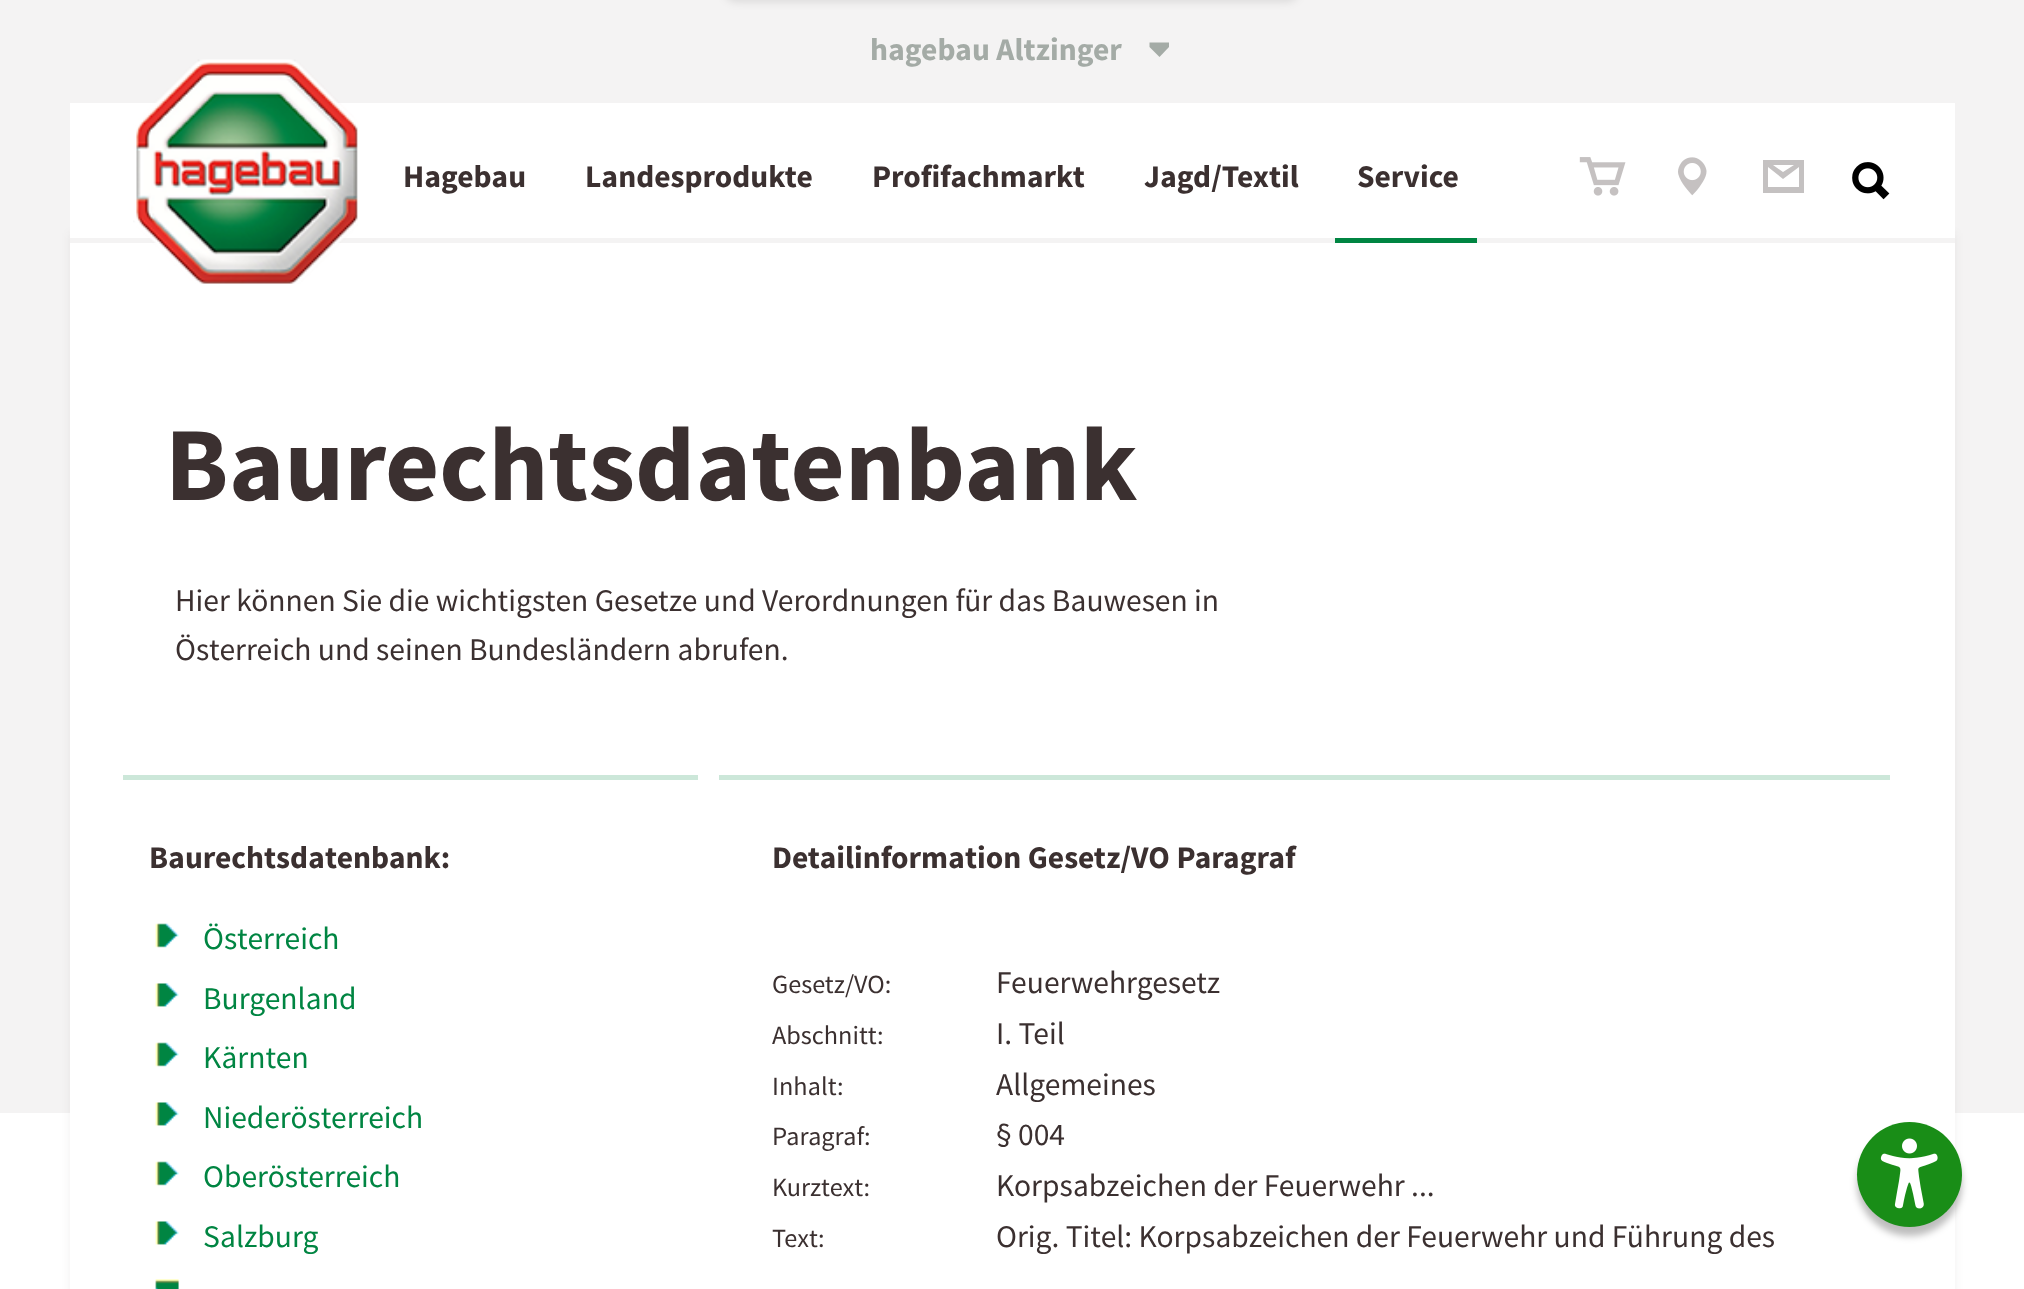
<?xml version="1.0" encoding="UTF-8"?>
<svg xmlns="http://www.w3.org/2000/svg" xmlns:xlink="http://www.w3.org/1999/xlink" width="2024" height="1289">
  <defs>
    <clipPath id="clip1"><path d="M 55 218 h 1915 v 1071 h -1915 z m 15 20 h 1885 v 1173 h -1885 z" clip-rule="evenodd" /></clipPath>
  </defs>
  <rect width="100%" height="100%" fill="#ffffff" />
  <rect width="2024" height="1113" fill="#f4f3f3" />
  <rect x="70" y="252" width="1885" height="861" fill="#ffffff" />
  <g clip-path="url(#clip1)">
    <rect x="70" y="233" width="1885" height="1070" fill="#3b3030" fill-opacity="0.07" filter="blur(4.5px)" />
  </g>
  <rect x="723" y="-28" width="577" height="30" rx="14" fill="#000000" fill-opacity="0.1" filter="blur(4.5px)" />
  <path d="M 1169 42.5 v 4.5 l -9.5 10 l -10 -10 v -4.5 z" fill="#a4aba6" />
  <rect x="70" y="103" width="1885" height="135" fill="#ffffff" />
  <rect x="70" y="243" width="1885" height="9" fill="#ffffff" />
  <image x="133" y="59" width="225" height="225" xlink:href="image1.png" />
  <rect x="1335" y="238" width="142" height="5" fill="#008542" />
  <image x="1579" y="157" width="47" height="39" xlink:href="image2.png" />
  <image x="1678" y="157" width="29" height="39" xlink:href="image3.png" />
  <path d="M 1763 160 h 41 v 33 h -41 z m 31 5 h -21 l 10 7 z m 5 22 v -20 l -16 12 l -15 -12 v 20 z" fill="#c4c1c1" />
  <image x="1852" y="162" width="38" height="38" xlink:href="image4.png" />
  <rect x="123" y="775" width="575" height="5" fill="#cce7d9" />
  <image x="155" y="923" width="24" height="25" xlink:href="image5.png" />
  <image x="155" y="983" width="24" height="24" xlink:href="image6.png" />
  <image x="155" y="1042" width="24" height="25" xlink:href="image5.png" />
  <image x="155" y="1102" width="24" height="24" xlink:href="image6.png" />
  <image x="155" y="1161" width="24" height="25" xlink:href="image5.png" />
  <image x="155" y="1221" width="24" height="24" xlink:href="image6.png" />
  <image x="155" y="1279" width="24" height="10" xlink:href="image7.png" />
  <rect x="719" y="775" width="1171" height="5" fill="#cce7d9" />
  <rect x="1857" y="1131" width="105" height="105" rx="52.5" fill="#000000" fill-opacity="0.26" filter="blur(3.5px)" />
  <circle cx="1909.5" cy="1174.5" r="52.5" fill="#198d17" />
  <image x="1880" y="1138" width="58" height="71" xlink:href="image8.png" />
  <text x="870" y="60" style="font-family: Source Sans Pro; font-size: 31.5px; font-weight: bold; fill: #a4aba6">hagebau Altzinger</text>
  <text x="403" y="187" style="font-family: Source Sans Pro; font-size: 31.5px; font-weight: bold; fill: #3b3030">Hagebau</text>
  <text x="585" y="187" style="font-family: Source Sans Pro; font-size: 31.5px; font-weight: bold; fill: #3b3030">Landesprodukte</text>
  <text x="872" y="187" style="font-family: Source Sans Pro; font-size: 31.5px; font-weight: bold; fill: #3b3030">Profifachmarkt</text>
  <text x="1144" y="187" style="font-family: Source Sans Pro; font-size: 31.5px; font-weight: bold; fill: #3b3030">Jagd/Textil</text>
  <text x="1357" y="187" style="font-family: Source Sans Pro; font-size: 31.5px; font-weight: bold; fill: #3b3030">Service</text>
  <text x="165" y="500" style="font-family: Source Sans Pro; font-size: 105px; font-weight: bold; fill: #3b3030">Baurechtsdatenbank</text>
  <text x="175" y="611" style="font-family: Source Sans Pro; font-size: 31.5px; fill: #3b3030">Hier können Sie die wichtigsten Gesetze und Verordnungen für das Bauwesen in</text>
  <text x="175" y="660" style="font-family: Source Sans Pro; font-size: 31.5px; fill: #3b3030">Österreich und seinen Bundesländern abrufen.</text>
  <text x="149" y="868" style="font-family: Source Sans Pro; font-size: 31.5px; font-weight: bold; fill: #3b3030">Baurechtsdatenbank:</text>
  <text x="203" y="949" style="font-family: Source Sans Pro; font-size: 31.5px; fill: #008542">Österreich</text>
  <text x="203" y="1009" style="font-family: Source Sans Pro; font-size: 31.5px; fill: #008542">Burgenland</text>
  <text x="203" y="1068" style="font-family: Source Sans Pro; font-size: 31.5px; fill: #008542">Kärnten</text>
  <text x="203" y="1128" style="font-family: Source Sans Pro; font-size: 31.5px; fill: #008542">Niederösterreich</text>
  <text x="203" y="1187" style="font-family: Source Sans Pro; font-size: 31.5px; fill: #008542">Oberösterreich</text>
  <text x="203" y="1247" style="font-family: Source Sans Pro; font-size: 31.5px; fill: #008542">Salzburg</text>
  <text x="772" y="868" style="font-family: Source Sans Pro; font-size: 31.5px; font-weight: bold; fill: #3b3030">Detailinformation Gesetz/VO Paragraf</text>
  <text x="772" y="993" style="font-family: Source Sans Pro; font-size: 26.25px; fill: #3b3030">Gesetz/VO:</text>
  <text x="996" y="993" style="font-family: Source Sans Pro; font-size: 31.5px; fill: #3b3030">Feuerwehrgesetz</text>
  <text x="772" y="1044" style="font-family: Source Sans Pro; font-size: 26.25px; fill: #3b3030">Abschnitt:</text>
  <text x="996" y="1044" style="font-family: Source Sans Pro; font-size: 31.5px; fill: #3b3030">I. Teil</text>
  <text x="772" y="1095" style="font-family: Source Sans Pro; font-size: 26.25px; fill: #3b3030">Inhalt:</text>
  <text x="996" y="1095" style="font-family: Source Sans Pro; font-size: 31.5px; fill: #3b3030">Allgemeines</text>
  <text x="772" y="1145" style="font-family: Source Sans Pro; font-size: 26.25px; fill: #3b3030">Paragraf:</text>
  <text x="996" y="1145" style="font-family: Source Sans Pro; font-size: 31.5px; fill: #3b3030">§ 004</text>
  <text x="772" y="1196" style="font-family: Source Sans Pro; font-size: 26.25px; fill: #3b3030">Kurztext:</text>
  <text x="996" y="1196" style="font-family: Source Sans Pro; font-size: 31.5px; fill: #3b3030">Korpsabzeichen der Feuerwehr ...</text>
  <text x="772" y="1247" style="font-family: Source Sans Pro; font-size: 26.25px; fill: #3b3030">Text:</text>
  <text x="996" y="1247" style="font-family: Source Sans Pro; font-size: 31.5px; fill: #3b3030">Orig. Titel: Korpsabzeichen der Feuerwehr und Führung des</text>
</svg>
